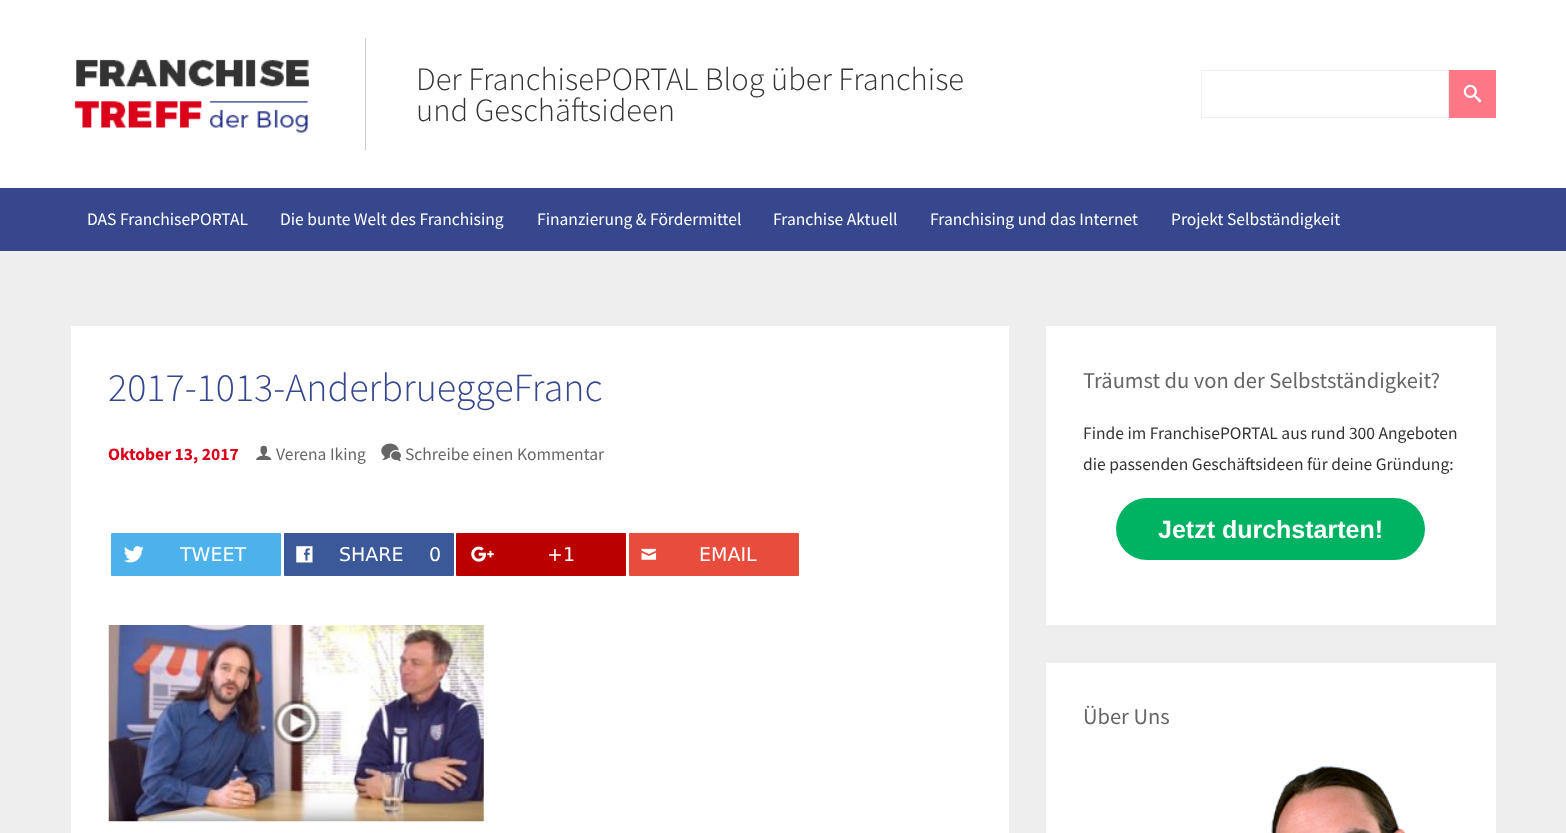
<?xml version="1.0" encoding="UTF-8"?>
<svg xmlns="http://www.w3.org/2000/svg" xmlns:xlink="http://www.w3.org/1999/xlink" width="1566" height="833">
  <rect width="100%" height="100%" fill="#eeeeee" />
  <rect width="1566" height="188" fill="#ffffff" />
  <image x="74" y="59" width="235" height="74" xlink:href="image1.png" />
  <rect x="365" y="38" width="1" height="112" fill="#cccccc" />
  <rect x="1201.5" y="70.5" width="247" height="47" fill="none" stroke="#eeeeee" />
  <rect x="1449" y="70" width="47" height="48" fill="#fe7787" />
  <image x="1463" y="84" width="19" height="19" xlink:href="image2.png" />
  <rect y="188" width="1566" height="63" fill="#36478d" />
  <rect x="71" y="326" width="938" height="507" fill="#ffffff" />
  <image x="256" y="445" width="16" height="15" xlink:href="image3.png" />
  <image x="381" y="443" width="20" height="19" xlink:href="image4.png" />
  <rect x="111" y="533" width="170" height="43" rx="1" fill="#4db2ec" />
  <image x="124" y="546" width="20" height="17" xlink:href="image5.png" />
  <rect x="284" y="533" width="170" height="43" rx="1" fill="#3b5998" />
  <image x="296" y="546" width="17" height="17" xlink:href="image6.png" />
  <rect x="456" y="533" width="170" height="43" rx="1" fill="#bb0000" />
  <image x="471" y="546" width="23" height="16" xlink:href="image7.png" />
  <rect x="629" y="533" width="170" height="43" rx="1" fill="#e74c3c" />
  <image x="641" y="548" width="16" height="12" xlink:href="image8.png" />
  <image x="108" y="625" width="376" height="197" xlink:href="image9.png" />
  <rect x="1046" y="326" width="450" height="299" fill="#ffffff" />
  <rect x="1116" y="498" width="309" height="62" rx="31" fill="#00b363" />
  <rect x="1046" y="663" width="450" height="170" fill="#ffffff" />
  <image x="1271" y="766" width="135" height="67" xlink:href="image10.png" />
  <text x="416" y="90" style="font-family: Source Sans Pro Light; font-size: 32.5px; font-weight: 300; fill: #333333">Der FranchisePORTAL Blog über Franchise</text>
  <text x="416" y="121" style="font-family: Source Sans Pro Light; font-size: 32.5px; font-weight: 300; fill: #333333">und Geschäftsideen</text>
  <text x="87" y="225" style="font-family: Source Sans Pro; font-size: 17.5px; fill: #ffffff">DAS FranchisePORTAL</text>
  <text x="280" y="225" style="font-family: Source Sans Pro; font-size: 17.5px; fill: #ffffff">Die bunte Welt des Franchising</text>
  <text x="537" y="225" style="font-family: Source Sans Pro; font-size: 17.5px; fill: #ffffff">Finanzierung &amp; Fördermittel</text>
  <text x="773" y="225" style="font-family: Source Sans Pro; font-size: 17.5px; fill: #ffffff">Franchise Aktuell</text>
  <text x="930" y="225" style="font-family: Source Sans Pro; font-size: 17.5px; fill: #ffffff">Franchising und das Internet</text>
  <text x="1171" y="225" style="font-family: Source Sans Pro; font-size: 17.5px; fill: #ffffff">Projekt Selbständigkeit</text>
  <text x="108" y="401" style="font-family: Source Sans Pro Light; font-size: 40px; font-weight: 300; fill: #36478d">2017-1013-AnderbrueggeFranc</text>
  <text x="108" y="460" style="font-family: Source Sans Pro; font-size: 17.5px; font-weight: bold; fill: #db011b">Oktober 13, 2017</text>
  <text x="276" y="460" style="font-family: Source Sans Pro; font-size: 17.5px; fill: #666666">Verena Iking</text>
  <text x="405" y="460" style="font-family: Source Sans Pro; font-size: 17.5px; fill: #666666">Schreibe einen Kommentar</text>
  <text x="180" y="561" style="font-family: DejaVu Sans; font-size: 19px; fill: #ffffff">TWEET</text>
  <text x="339" y="561" style="font-family: DejaVu Sans; font-size: 19px; fill: #ffffff">SHARE</text>
  <text x="429" y="561" style="font-family: DejaVu Sans; font-size: 19px; fill: #ffffff">0</text>
  <text x="547" y="561" style="font-family: DejaVu Sans; font-size: 19px; fill: #ffffff">+1</text>
  <text x="699" y="561" style="font-family: DejaVu Sans; font-size: 19px; fill: #ffffff">EMAIL</text>
  <text x="1083" y="388" style="font-family: Source Sans Pro; font-size: 22.5px; fill: #666666">Träumst du von der Selbstständigkeit?</text>
  <text x="1083" y="439" style="font-family: Source Sans Pro; font-size: 17.5px; fill: #333333">Finde im FranchisePORTAL aus rund 300 Angeboten</text>
  <text x="1083" y="470" style="font-family: Source Sans Pro; font-size: 17.5px; fill: #333333">die passenden Geschäftsideen für deine Gründung:</text>
  <text x="1158" y="538" style="font-family: Liberation Sans; font-size: 25px; font-weight: bold; fill: #ffffff">Jetzt durchstarten!</text>
  <text x="1083" y="724" style="font-family: Source Sans Pro; font-size: 22.5px; fill: #666666">Über Uns</text>
</svg>
